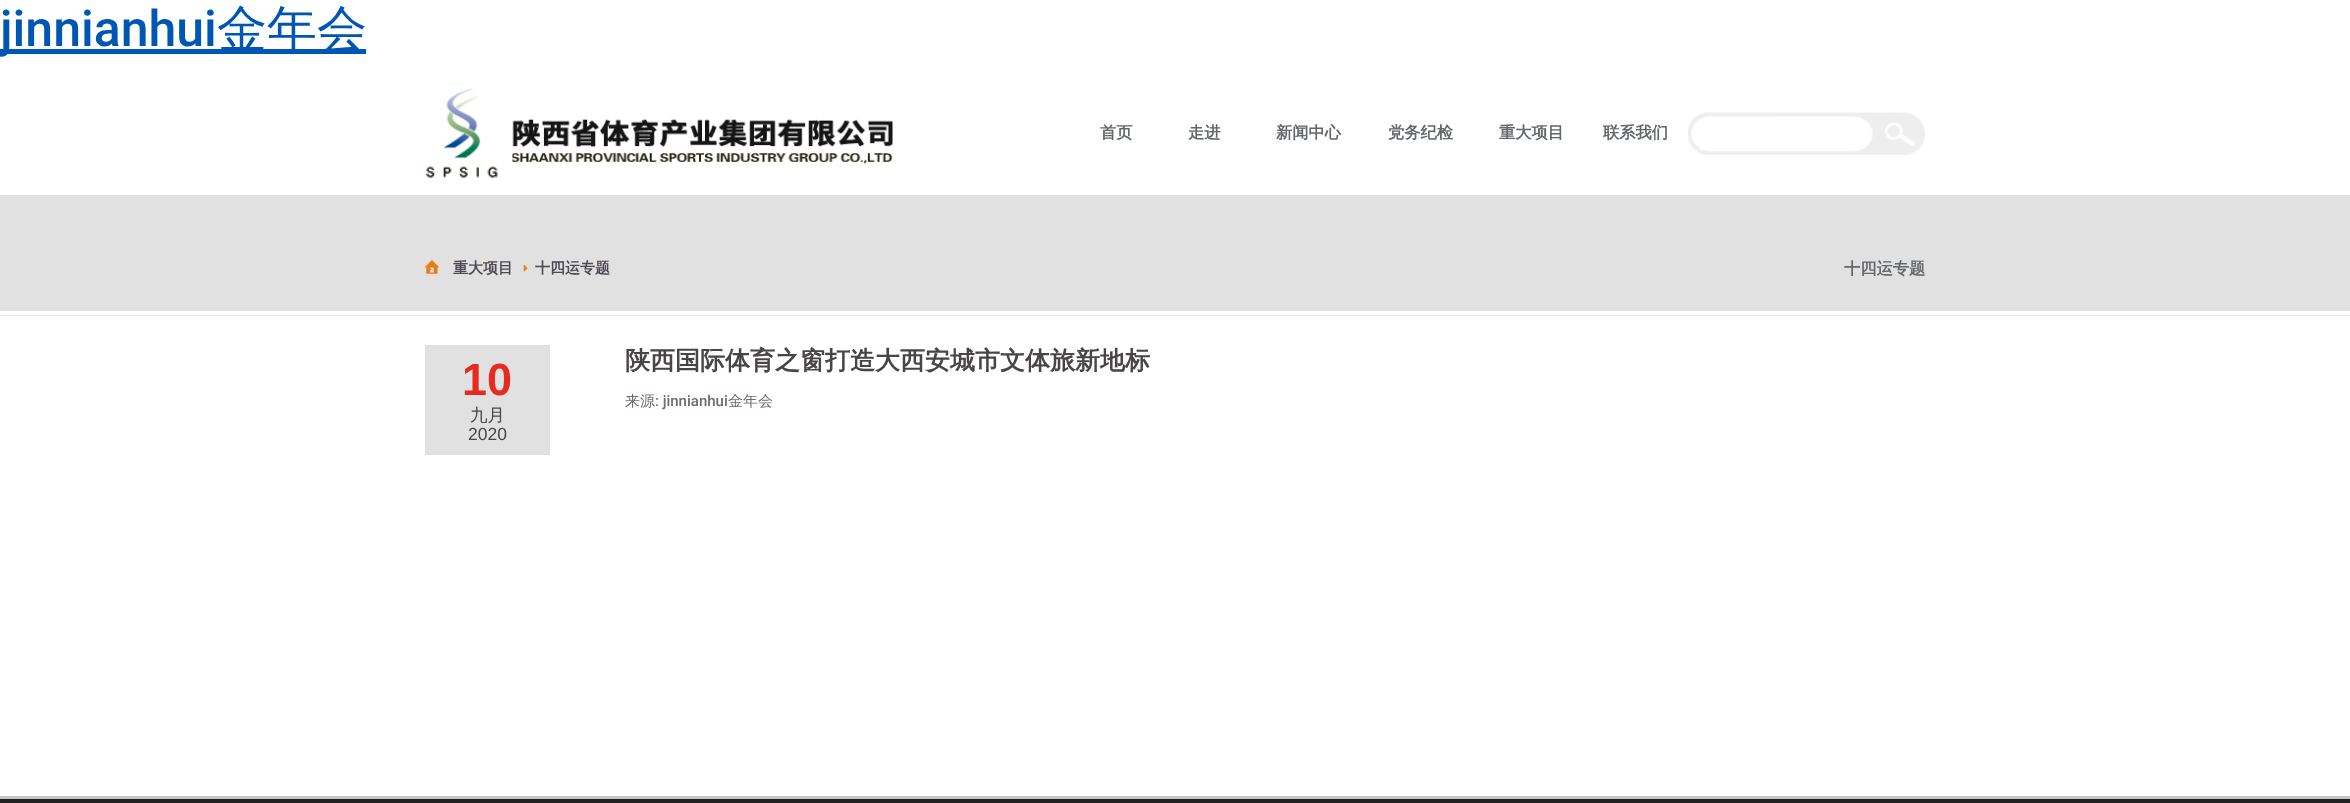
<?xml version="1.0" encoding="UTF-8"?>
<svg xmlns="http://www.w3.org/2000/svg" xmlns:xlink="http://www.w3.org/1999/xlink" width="2350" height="803">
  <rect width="100%" height="100%" fill="#ffffff" />
  <rect y="49" width="366" height="5" fill="#0056b3" />
  <image x="426" y="88" width="72" height="90" xlink:href="image1.png" />
  <image x="512" y="119" width="381" height="45" xlink:href="image2.png" />
  <image x="1688" y="112" width="237" height="43" xlink:href="image3.png" />
  <rect x="1700" y="119" width="4" height="31" fill="#ffffff" />
  <image x="1881" y="120" width="34" height="26" xlink:href="image4.png" />
  <rect y="796" width="2350" height="3" fill="#c5c5c5" />
  <rect y="195" width="2350" height="116" fill="#e1e1e1" />
  <rect y="315" width="2350" height="1" fill="#eaeaea" />
  <image x="425" y="260" width="14" height="14" xlink:href="image5.png" />
  <image x="523" y="265" width="5" height="7" xlink:href="image6.png" />
  <rect x="425" y="345" width="125" height="110" fill="#e1e1e1" />
  <rect y="799" width="2350" height="4" fill="#212121" />
  <text x="0" y="46" style="font-family: Roboto; font-size: 50px; font-weight: 500; fill: #0056b3">jinnianhui</text>
  <text x="217" y="46" style="font-family: WenQuanYi Zen Hei; font-size: 50px; font-weight: 500; fill: #0056b3">金年会</text>
  <text x="1100" y="138" style="font-family: WenQuanYi Zen Hei; font-size: 16.25px; font-weight: bold; fill: #63666b">首页</text>
  <text x="1188" y="138" style="font-family: WenQuanYi Zen Hei; font-size: 16.25px; font-weight: bold; fill: #63666b">走进</text>
  <text x="1276" y="138" style="font-family: WenQuanYi Zen Hei; font-size: 16.25px; font-weight: bold; fill: #63666b">新闻中心</text>
  <text x="1388" y="138" style="font-family: WenQuanYi Zen Hei; font-size: 16.25px; font-weight: bold; fill: #63666b">党务纪检</text>
  <text x="1499" y="138" style="font-family: WenQuanYi Zen Hei; font-size: 16.25px; font-weight: bold; fill: #63666b">重大项目</text>
  <text x="1603" y="138" style="font-family: WenQuanYi Zen Hei; font-size: 16.25px; font-weight: bold; fill: #63666b">联系我们</text>
  <text x="453" y="273" style="font-family: WenQuanYi Zen Hei; font-size: 15px; font-weight: bold; fill: #4d4852">重大项目</text>
  <text x="535" y="273" style="font-family: WenQuanYi Zen Hei; font-size: 15px; font-weight: bold; fill: #4d4852">十四运专题</text>
  <text x="1844" y="274" style="font-family: WenQuanYi Zen Hei; font-size: 16.25px; font-weight: bold; fill: #63666b">十四运专题</text>
  <text x="625" y="369" style="font-family: WenQuanYi Zen Hei; font-size: 25px; font-weight: bold; fill: #474545">陕西国际体育之窗打造大西安城市文体旅新地标</text>
  <text x="462" y="395" style="font-family: Liberation Sans; font-size: 45px; font-weight: bold; fill: #e62b1e">10</text>
  <text x="470" y="421" style="font-family: WenQuanYi Zen Hei; font-size: 17.5px; font-weight: 500; fill: #474545">九月</text>
  <text x="468" y="440" style="font-family: Liberation Sans; font-size: 17.5px; fill: #474545">2020</text>
  <text x="625" y="406" style="font-family: WenQuanYi Zen Hei; font-size: 15px; font-weight: 500; fill: #746969">来源</text>
  <text x="655" y="406" style="font-family: Roboto; font-size: 15px; font-weight: 500; fill: #746969">: jinnianhui</text>
  <text x="728" y="406" style="font-family: WenQuanYi Zen Hei; font-size: 15px; font-weight: 500; fill: #746969">金年会</text>
</svg>
